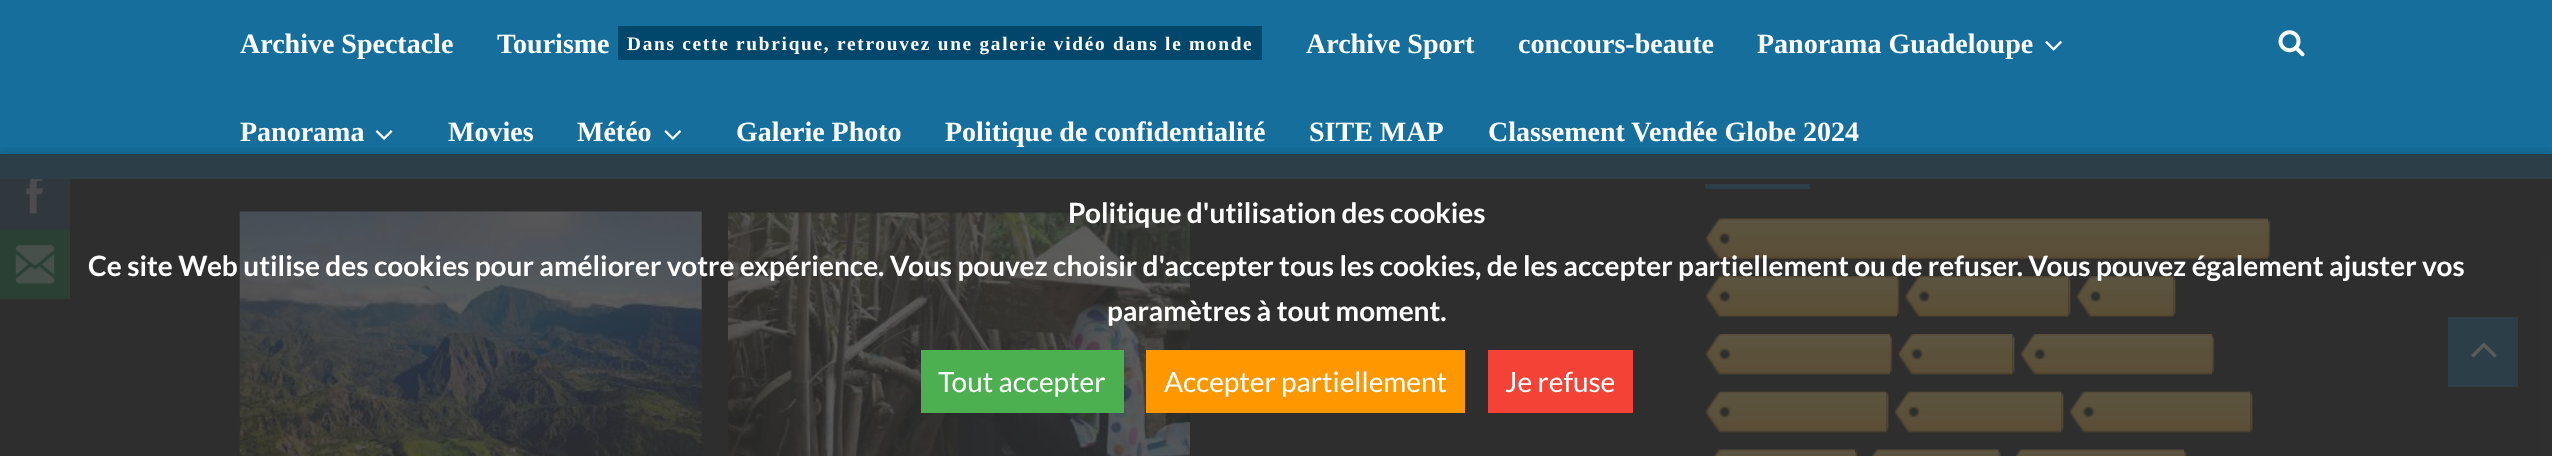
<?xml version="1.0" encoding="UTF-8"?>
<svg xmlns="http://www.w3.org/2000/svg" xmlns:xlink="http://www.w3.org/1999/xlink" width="2552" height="456">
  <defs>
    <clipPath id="clip1"><rect x="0" y="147" width="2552" height="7" /></clipPath>
  </defs>
  <rect width="100%" height="100%" fill="#212121" />
  <rect width="2552" height="179" fill="#156e9b" />
  <rect x="618" y="26" width="644" height="34" fill="#00476b" />
  <image x="2045" y="41" width="17" height="10" xlink:href="image1.png" />
  <image x="375" y="130" width="18" height="10" xlink:href="image2.png" />
  <image x="664" y="130" width="18" height="10" xlink:href="image3.png" />
  <image x="2278" y="30" width="27" height="27" xlink:href="image4.png" />
  <image x="239" y="211" width="463" height="245" xlink:href="image5.png" />
  <image x="728" y="211" width="462" height="245" xlink:href="image6.png" />
  <rect x="1705" y="184" width="105" height="5" fill="#156e9b" />
  <image x="1705" y="218" width="563" height="42" xlink:href="image7.png" />
  <image x="2268" y="219" width="3" height="39" xlink:href="image8.png" />
  <image x="1706" y="276" width="191" height="42" xlink:href="image9.png" />
  <image x="1897" y="277" width="3" height="39" xlink:href="image10.png" />
  <image x="1905" y="276" width="164" height="42" xlink:href="image11.png" />
  <image x="2068" y="277" width="3" height="39" xlink:href="image12.png" />
  <image x="2076" y="276" width="98" height="42" xlink:href="image13.png" />
  <image x="2173" y="277" width="3" height="39" xlink:href="image12.png" />
  <image x="1705" y="334" width="185" height="42" xlink:href="image14.png" />
  <image x="1890" y="335" width="3" height="39" xlink:href="image15.png" />
  <image x="1898" y="334" width="115" height="41" xlink:href="image16.png" />
  <image x="2012" y="335" width="3" height="39" xlink:href="image17.png" />
  <image x="2021" y="334" width="191" height="42" xlink:href="image18.png" />
  <image x="2212" y="335" width="3" height="39" xlink:href="image15.png" />
  <image x="1705" y="391" width="182" height="42" xlink:href="image19.png" />
  <image x="1886" y="393" width="3" height="38" xlink:href="image20.png" />
  <image x="1894" y="391" width="168" height="42" xlink:href="image21.png" />
  <image x="2061" y="393" width="3" height="38" xlink:href="image20.png" />
  <image x="2069" y="391" width="182" height="42" xlink:href="image22.png" />
  <image x="2250" y="393" width="3" height="38" xlink:href="image20.png" />
  <image x="1714" y="449" width="141" height="7" xlink:href="image23.png" />
  <image x="1855" y="450" width="3" height="6" xlink:href="image24.png" />
  <image x="1872" y="449" width="127" height="7" xlink:href="image25.png" />
  <image x="1998" y="450" width="3" height="6" xlink:href="image26.png" />
  <image x="2015" y="449" width="169" height="7" xlink:href="image27.png" />
  <image x="2184" y="450" width="3" height="6" xlink:href="image24.png" />
  <rect y="179" width="70" height="50" fill="#2c4a69" />
  <image x="26" y="179" width="17" height="35" xlink:href="image28.png" />
  <rect y="229" width="70" height="70" fill="#0d773c" />
  <image x="15" y="244" width="40" height="41" xlink:href="image29.png" />
  <rect x="2448" y="317" width="70" height="70" fill="#156e9b" />
  <image x="2471" y="342" width="26" height="16" xlink:href="image30.png" />
  <g clip-path="url(#clip1)">
    <rect y="151" width="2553" height="302" fill="#000000" fill-opacity="0.1" filter="blur(4.5px)" />
  </g>
  <rect y="154" width="2552" height="302" fill="#323232" fill-opacity="0.8" />
  <rect x="921" y="350" width="203" height="63" fill="#4caf50" />
  <rect x="1146" y="350" width="319" height="63" fill="#ff9800" />
  <rect x="1488" y="350" width="145" height="63" fill="#f44336" />
  <text x="240" y="53" style="font-family: Liberation Serif; font-size: 28px; font-weight: bold; fill: #ffffff">Archive Spectacle</text>
  <text x="497" y="53" style="font-family: Liberation Serif; font-size: 28px; font-weight: bold; fill: #ffffff">Tourisme</text>
  <text x="627" y="50" style="font-family: Liberation Serif; font-size: 19.25px; font-weight: bold; letter-spacing: 1.75px; fill: #ffffff">Dans cette rubrique, retrouvez une galerie vidéo dans le monde</text>
  <text x="1306" y="53" style="font-family: Liberation Serif; font-size: 28px; font-weight: bold; fill: #ffffff">Archive Sport</text>
  <text x="1518" y="53" style="font-family: Liberation Serif; font-size: 28px; font-weight: bold; fill: #ffffff">concours-beaute</text>
  <text x="1757" y="53" style="font-family: Liberation Serif; font-size: 28px; font-weight: bold; fill: #ffffff">Panorama Guadeloupe</text>
  <text x="240" y="141" style="font-family: Liberation Serif; font-size: 28px; font-weight: bold; fill: #ffffff">Panorama</text>
  <text x="448" y="141" style="font-family: Liberation Serif; font-size: 28px; font-weight: bold; fill: #ffffff">Movies</text>
  <text x="577" y="141" style="font-family: Liberation Serif; font-size: 28px; font-weight: bold; fill: #ffffff">Météo</text>
  <text x="736" y="141" style="font-family: Liberation Serif; font-size: 28px; font-weight: bold; fill: #ffffff">Galerie Photo</text>
  <text x="945" y="141" style="font-family: Liberation Serif; font-size: 28px; font-weight: bold; fill: #ffffff">Politique de confidentialité</text>
  <text x="1309" y="141" style="font-family: Liberation Serif; font-size: 28px; font-weight: bold; fill: #ffffff">SITE MAP</text>
  <text x="1488" y="141" style="font-family: Liberation Serif; font-size: 28px; font-weight: bold; fill: #ffffff">Classement Vendée Globe 2024</text>
  <text x="1068" y="223" style="font-family: Lato; font-size: 28px; font-weight: bold; fill: #ffffff">Politique d'utilisation des cookies</text>
  <text x="88" y="276" style="font-family: Lato; font-size: 28px; font-weight: bold; fill: #ffffff">Ce site Web utilise des cookies pour améliorer votre expérience. Vous pouvez choisir d'accepter tous les cookies, de les accepter partiellement ou de refuser. Vous pouvez également ajuster vos</text>
  <text x="1107" y="321" style="font-family: Lato; font-size: 28px; font-weight: bold; fill: #ffffff">paramètres à tout moment.</text>
  <text x="938" y="392" style="font-family: Lato; font-size: 28px; fill: #ffffff">Tout accepter</text>
  <text x="1164" y="392" style="font-family: Lato; font-size: 28px; fill: #ffffff">Accepter partiellement</text>
  <text x="1505" y="392" style="font-family: Lato; font-size: 28px; fill: #ffffff">Je refuse</text>
</svg>
